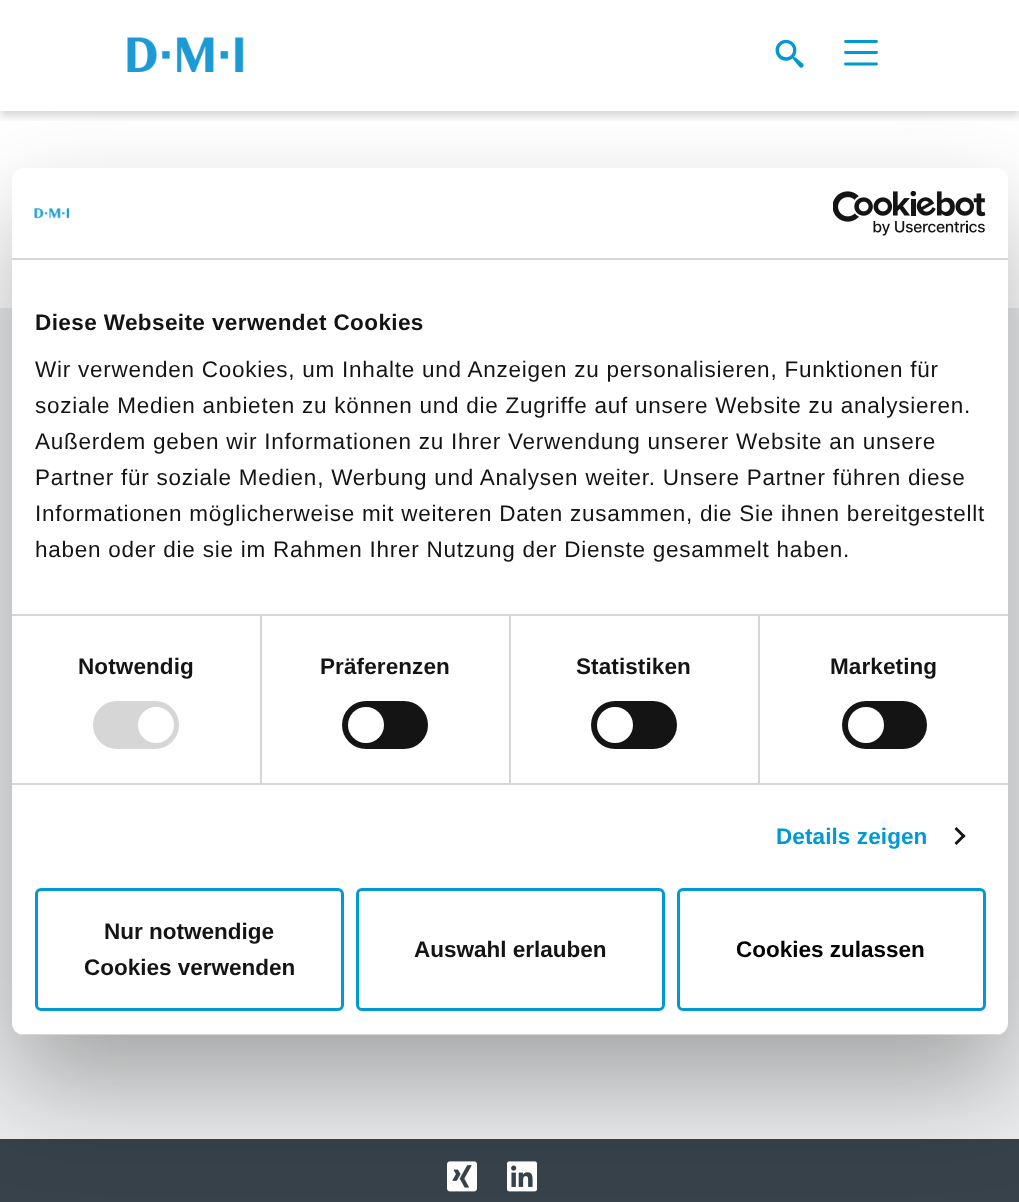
<?xml version="1.0" encoding="UTF-8"?>
<svg xmlns="http://www.w3.org/2000/svg" xmlns:xlink="http://www.w3.org/1999/xlink" width="1019" height="1202">
  <defs>
    <clipPath id="clip1"><rect x="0" y="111" width="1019" height="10" /></clipPath>
    <clipPath id="clip2"><rect x="12" y="168" width="996" height="867" rx="12" /></clipPath>
  </defs>
  <rect width="100%" height="100%" fill="#ffffff" />
  <g clip-path="url(#clip1)">
    <rect y="5" width="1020" height="111" fill="#000000" fill-opacity="0.16" filter="blur(4.5px)" />
  </g>
  <image x="127" y="37" width="117" height="35" xlink:href="image1.png" />
  <image x="775" y="39" width="29" height="29" xlink:href="image2.png" />
  <path d="M 845.5 41.5 h 31 m -31 11 h 31 m -31 11.5 h 31" fill="none" stroke="#0099d4" stroke-width="2.8" stroke-linecap="round" />
  <rect y="308" width="1019" height="831" fill="#ebeced" />
  <rect y="1139" width="1019" height="63" fill="#37424b" />
  <image x="447" y="1161" width="30" height="31" xlink:href="image5.png" />
  <image x="507" y="1161" width="30" height="31" xlink:href="image6.png" />
  <rect x="12" y="216" width="996" height="867" rx="12" fill="#000000" fill-opacity="0.3" filter="blur(51px)" />
  <rect x="12" y="168" width="996" height="867" rx="12" fill="#ffffff" />
  <rect x="12" y="258" width="996" height="2" fill="#d6d6d6" />
  <image x="34" y="208" width="35" height="11" xlink:href="image3.png" />
  <image x="833" y="191" width="153" height="45" xlink:href="image4.png" />
  <rect x="260" y="615" width="2" height="168" fill="#d6d6d6" />
  <rect x="509" y="615" width="2" height="168" fill="#d6d6d6" />
  <rect x="758" y="615" width="2" height="168" fill="#d6d6d6" />
  <rect x="12" y="614" width="996" height="2" fill="#d6d6d6" />
  <rect x="12" y="783" width="996" height="2" fill="#d6d6d6" />
  <rect x="93" y="701" width="86" height="48" rx="24" fill="#d6d6d6" />
  <circle cx="156" cy="725" r="18" fill="#ffffff" />
  <rect x="342" y="701" width="86" height="48" rx="24" fill="#141414" />
  <circle cx="366" cy="725" r="18" fill="#ffffff" />
  <rect x="591" y="701" width="86" height="48" rx="24" fill="#141414" />
  <circle cx="615" cy="725" r="18" fill="#ffffff" />
  <rect x="842" y="701" width="85" height="48" rx="24" fill="#141414" />
  <circle cx="866" cy="725" r="18" fill="#ffffff" />
  <path d="M 956.5 827 l 9 9 l -2 2 l -9 -9 z" fill="#141414" />
  <path d="M 963.5 834 l 2 2 l -9 9 l -2 -2 z" fill="#141414" />
  <g clip-path="url(#clip2)">
    <rect x="12" y="1034" width="996" height="1" fill="#d6d6d6" />
  </g>
  <rect x="36.5" y="889.5" width="306" height="120" rx="4.5" fill="none" stroke="#0099d4" stroke-width="3" />
  <rect x="357.5" y="889.5" width="306" height="120" rx="4.5" fill="none" stroke="#0099d4" stroke-width="3" />
  <rect x="678.5" y="889.5" width="306" height="120" rx="4.5" fill="none" stroke="#0099d4" stroke-width="3" />
  <text x="35" y="330" style="font-family: Liberation Sans; font-size: 22.5px; font-weight: bold; letter-spacing: 0.4px; fill: #141414">Diese Webseite verwendet Cookies</text>
  <text x="35" y="377" style="font-family: Liberation Sans; font-size: 22.5px; letter-spacing: 0.75px; fill: #141414">Wir verwenden Cookies, um Inhalte und Anzeigen zu personalisieren, Funktionen für</text>
  <text x="35" y="413" style="font-family: Liberation Sans; font-size: 22.5px; letter-spacing: 0.75px; fill: #141414">soziale Medien anbieten zu können und die Zugriffe auf unsere Website zu analysieren.</text>
  <text x="35" y="449" style="font-family: Liberation Sans; font-size: 22.5px; letter-spacing: 0.75px; fill: #141414">Außerdem geben wir Informationen zu Ihrer Verwendung unserer Website an unsere</text>
  <text x="35" y="485" style="font-family: Liberation Sans; font-size: 22.5px; letter-spacing: 0.75px; fill: #141414">Partner für soziale Medien, Werbung und Analysen weiter. Unsere Partner führen diese</text>
  <text x="35" y="521" style="font-family: Liberation Sans; font-size: 22.5px; letter-spacing: 0.75px; fill: #141414">Informationen möglicherweise mit weiteren Daten zusammen, die Sie ihnen bereitgestellt</text>
  <text x="35" y="557" style="font-family: Liberation Sans; font-size: 22.5px; letter-spacing: 0.75px; fill: #141414">haben oder die sie im Rahmen Ihrer Nutzung der Dienste gesammelt haben.</text>
  <text x="78" y="674" style="font-family: Liberation Sans; font-size: 22.5px; font-weight: bold; letter-spacing: 0.1px; fill: #141414">Notwendig</text>
  <text x="320" y="674" style="font-family: Liberation Sans; font-size: 22.5px; font-weight: bold; letter-spacing: 0.1px; fill: #141414">Präferenzen</text>
  <text x="576" y="674" style="font-family: Liberation Sans; font-size: 22.5px; font-weight: bold; letter-spacing: 0.1px; fill: #141414">Statistiken</text>
  <text x="830" y="674" style="font-family: Liberation Sans; font-size: 22.5px; font-weight: bold; letter-spacing: 0.1px; fill: #141414">Marketing</text>
  <text x="776" y="844" style="font-family: Liberation Sans; font-size: 22.5px; font-weight: bold; letter-spacing: 0.1px; fill: #0099d4">Details zeigen</text>
  <text x="104" y="939" style="font-family: Liberation Sans; font-size: 22.5px; font-weight: bold; fill: #141414">Nur notwendige</text>
  <text x="84" y="975" style="font-family: Liberation Sans; font-size: 22.5px; font-weight: bold; fill: #141414">Cookies verwenden</text>
  <text x="414" y="957" style="font-family: Liberation Sans; font-size: 22.5px; font-weight: bold; fill: #141414">Auswahl erlauben</text>
  <text x="736" y="957" style="font-family: Liberation Sans; font-size: 22.5px; font-weight: bold; fill: #000000">Cookies zulassen</text>
</svg>
